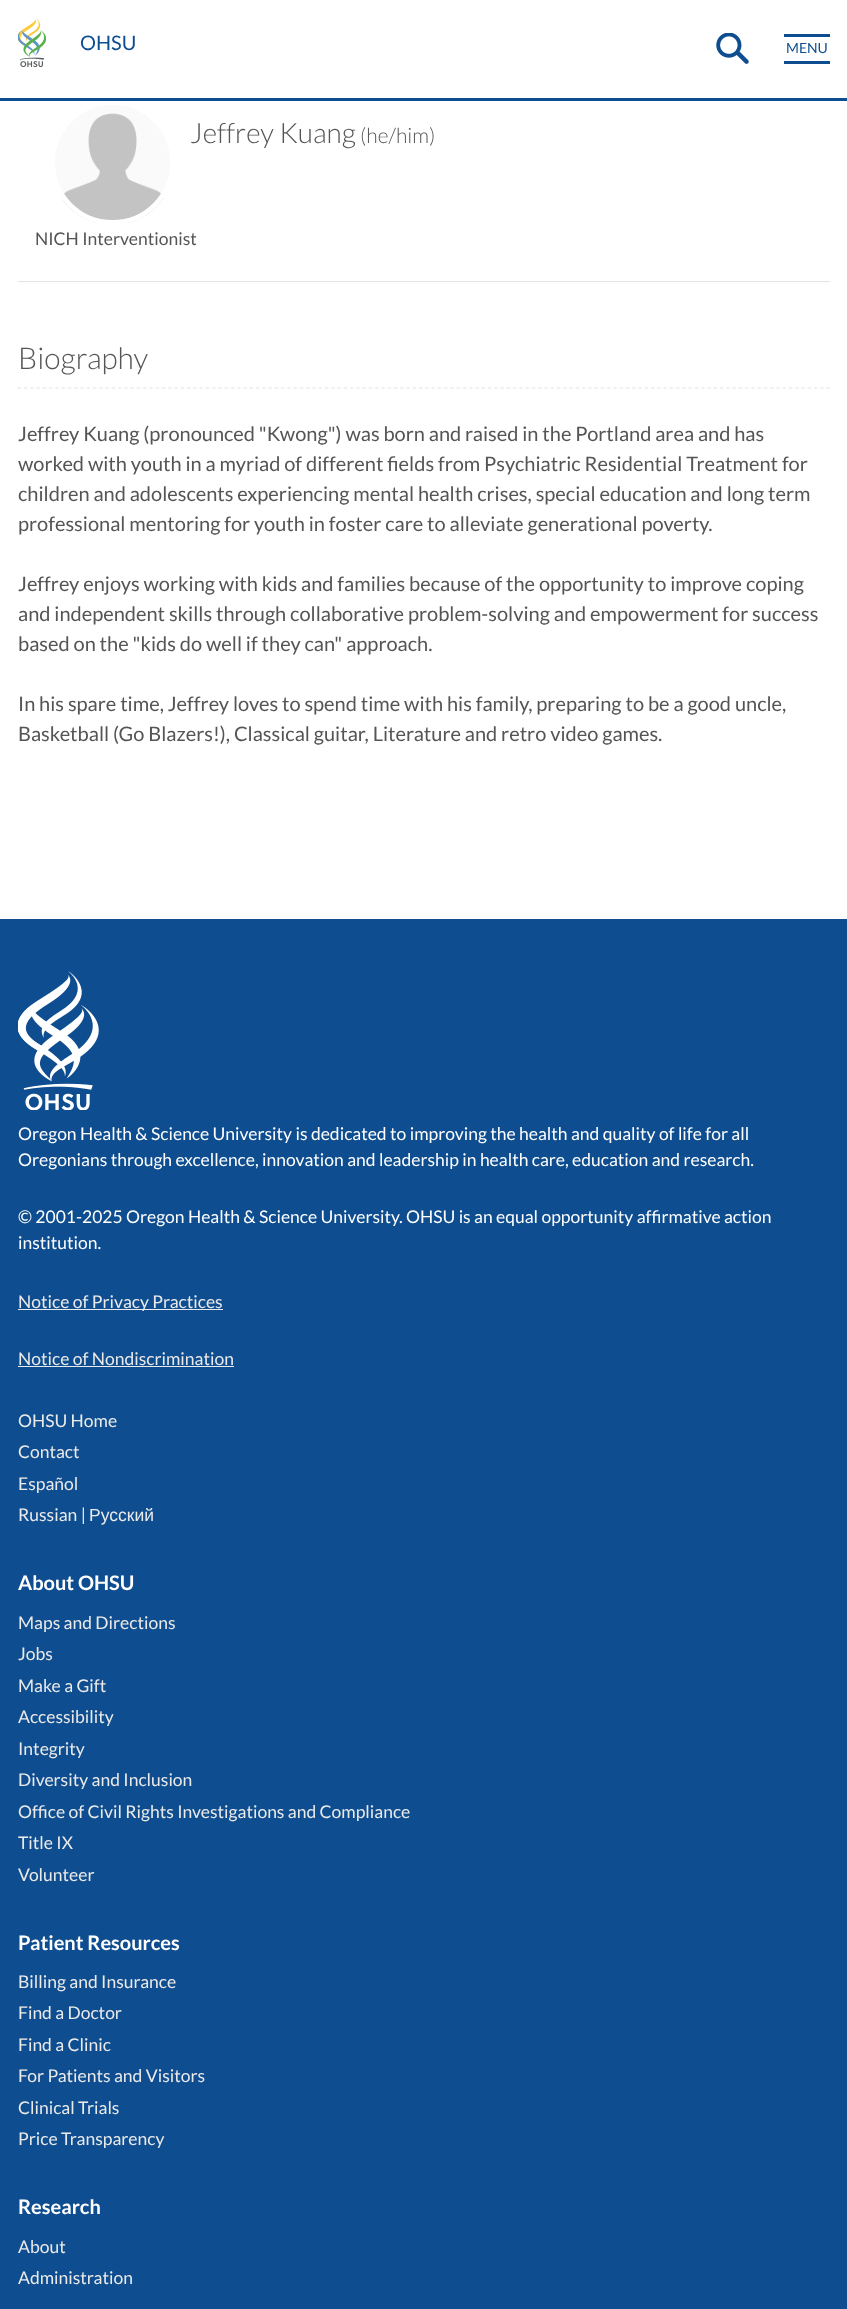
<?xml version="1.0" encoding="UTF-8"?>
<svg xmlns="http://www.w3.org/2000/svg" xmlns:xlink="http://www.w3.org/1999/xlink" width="847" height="2309">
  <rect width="100%" height="100%" fill="#0e4d8f" />
  <rect width="847" height="98" fill="#ffffff" />
  <image x="18" y="18" width="28" height="49" xlink:href="image1.png" />
  <image x="716" y="33" width="33" height="31" xlink:href="image2.png" />
  <rect x="784" y="34" width="46" height="3" fill="#0e4d8f" />
  <rect x="784" y="61" width="46" height="3" fill="#0e4d8f" />
  <rect y="101" width="847" height="818" fill="#ffffff" />
  <image x="55" y="105" width="115" height="120" xlink:href="image3.png" />
  <circle cx="112.5" cy="162.5" r="60" fill="none" stroke="#ffffff" stroke-width="5" />
  <rect x="101" y="100" width="23" height="1" fill="#0e4d8f" />
  <rect x="18" y="281" width="812" height="1" fill="#e5e4e4" />
  <path d="M 17.5 388 h 812.5" fill="none" stroke="#e5e4e4" stroke-width="1.2" stroke-dasharray="3.75 2.52" />
  <image x="18" y="971" width="81" height="139" xlink:href="image4.png" />
  <rect x="18" y="1309" width="205" height="1" fill="#ebeaea" />
  <rect x="18" y="1366" width="216" height="1" fill="#ebeaea" />
  <text x="80" y="50" style="font-family: Lato; font-size: 20px; fill: #0e4d8f">OHSU</text>
  <text x="786" y="53" style="font-family: Lato; font-size: 14px; fill: #0e4d8f">MENU</text>
  <text x="190" y="143" style="font-family: Lato; font-size: 28px; font-weight: 300; fill: #555555">Jeffrey Kuang</text>
  <text x="360" y="143" style="font-family: Lato; font-size: 21px; font-weight: 300; fill: #555555">(he/him)</text>
  <text x="35" y="245" style="font-family: Lato; font-size: 17.5px; fill: #555555">NICH Interventionist</text>
  <text x="18" y="369" style="font-family: Lato; font-size: 30px; font-weight: 300; fill: #555555">Biography</text>
  <text x="18" y="441" style="font-family: Lato; font-size: 20px; fill: #555555">Jeffrey Kuang (pronounced "Kwong") was born and raised in the Portland area and has</text>
  <text x="18" y="471" style="font-family: Lato; font-size: 20px; fill: #555555">worked with youth in a myriad of different fields from Psychiatric Residential Treatment for</text>
  <text x="18" y="501" style="font-family: Lato; font-size: 20px; fill: #555555">children and adolescents experiencing mental health crises, special education and long term</text>
  <text x="18" y="531" style="font-family: Lato; font-size: 20px; fill: #555555">professional mentoring for youth in foster care to alleviate generational poverty.</text>
  <text x="18" y="591" style="font-family: Lato; font-size: 20px; fill: #555555">Jeffrey enjoys working with kids and families because of the opportunity to improve coping</text>
  <text x="18" y="621" style="font-family: Lato; font-size: 20px; fill: #555555">and independent skills through collaborative problem-solving and empowerment for success</text>
  <text x="18" y="651" style="font-family: Lato; font-size: 20px; fill: #555555">based on the "kids do well if they can" approach.</text>
  <text x="18" y="711" style="font-family: Lato; font-size: 20px; fill: #555555">In his spare time, Jeffrey loves to spend time with his family, preparing to be a good uncle,</text>
  <text x="18" y="741" style="font-family: Lato; font-size: 20px; fill: #555555">Basketball (Go Blazers!), Classical guitar, Literature and retro video games.</text>
  <text x="18" y="1140" style="font-family: Lato; font-size: 17.5px; fill: #ffffff">Oregon Health &amp; Science University is dedicated to improving the health and quality of life for all</text>
  <text x="18" y="1166" style="font-family: Lato; font-size: 17.5px; fill: #ffffff">Oregonians through excellence, innovation and leadership in health care, education and research.</text>
  <text x="18" y="1223" style="font-family: Lato; font-size: 17.5px; fill: #ffffff">© 2001-2025 Oregon Health &amp; Science University. OHSU is an equal opportunity affirmative action</text>
  <text x="18" y="1249" style="font-family: Lato; font-size: 17.5px; fill: #ffffff">institution.</text>
  <text x="18" y="1308" style="font-family: Lato; font-size: 17.5px; fill: #ebeaea">Notice of Privacy Practices</text>
  <text x="18" y="1365" style="font-family: Lato; font-size: 17.5px; fill: #ebeaea">Notice of Nondiscrimination</text>
  <text x="18" y="1427" style="font-family: Lato; font-size: 17.5px; fill: #ebeaea">OHSU Home</text>
  <text x="18" y="1458" style="font-family: Lato; font-size: 17.5px; fill: #ebeaea">Contact</text>
  <text x="18" y="1490" style="font-family: Lato; font-size: 17.5px; fill: #ebeaea">Español</text>
  <text x="18" y="1521" style="font-family: Lato; font-size: 17.5px; fill: #ebeaea">Russian |</text>
  <text x="89" y="1521" style="font-family: Liberation Sans; font-size: 17.5px; fill: #ebeaea">Русский</text>
  <text x="18" y="1590" style="font-family: Lato; font-size: 20px; font-weight: bold; fill: #ffffff">About OHSU</text>
  <text x="18" y="1629" style="font-family: Lato; font-size: 17.5px; fill: #ebeaea">Maps and Directions</text>
  <text x="18" y="1660" style="font-family: Lato; font-size: 17.5px; fill: #ebeaea">Jobs</text>
  <text x="18" y="1692" style="font-family: Lato; font-size: 17.5px; fill: #ebeaea">Make a Gift</text>
  <text x="18" y="1723" style="font-family: Lato; font-size: 17.5px; fill: #ebeaea">Accessibility</text>
  <text x="18" y="1755" style="font-family: Lato; font-size: 17.5px; fill: #ebeaea">Integrity</text>
  <text x="18" y="1786" style="font-family: Lato; font-size: 17.5px; fill: #ebeaea">Diversity and Inclusion</text>
  <text x="18" y="1818" style="font-family: Lato; font-size: 17.5px; fill: #ebeaea">Office of Civil Rights Investigations and Compliance</text>
  <text x="18" y="1849" style="font-family: Lato; font-size: 17.5px; fill: #ebeaea">Title IX</text>
  <text x="18" y="1881" style="font-family: Lato; font-size: 17.5px; fill: #ebeaea">Volunteer</text>
  <text x="18" y="1950" style="font-family: Lato; font-size: 20px; font-weight: bold; fill: #ffffff">Patient Resources</text>
  <text x="18" y="1988" style="font-family: Lato; font-size: 17.5px; fill: #ebeaea">Billing and Insurance</text>
  <text x="18" y="2019" style="font-family: Lato; font-size: 17.5px; fill: #ebeaea">Find a Doctor</text>
  <text x="18" y="2051" style="font-family: Lato; font-size: 17.5px; fill: #ebeaea">Find a Clinic</text>
  <text x="18" y="2082" style="font-family: Lato; font-size: 17.5px; fill: #ebeaea">For Patients and Visitors</text>
  <text x="18" y="2114" style="font-family: Lato; font-size: 17.5px; fill: #ebeaea">Clinical Trials</text>
  <text x="18" y="2145" style="font-family: Lato; font-size: 17.5px; fill: #ebeaea">Price Transparency</text>
  <text x="18" y="2214" style="font-family: Lato; font-size: 20px; font-weight: bold; fill: #ffffff">Research</text>
  <text x="18" y="2253" style="font-family: Lato; font-size: 17.5px; fill: #ebeaea">About</text>
  <text x="18" y="2284" style="font-family: Lato; font-size: 17.5px; fill: #ebeaea">Administration</text>
</svg>
